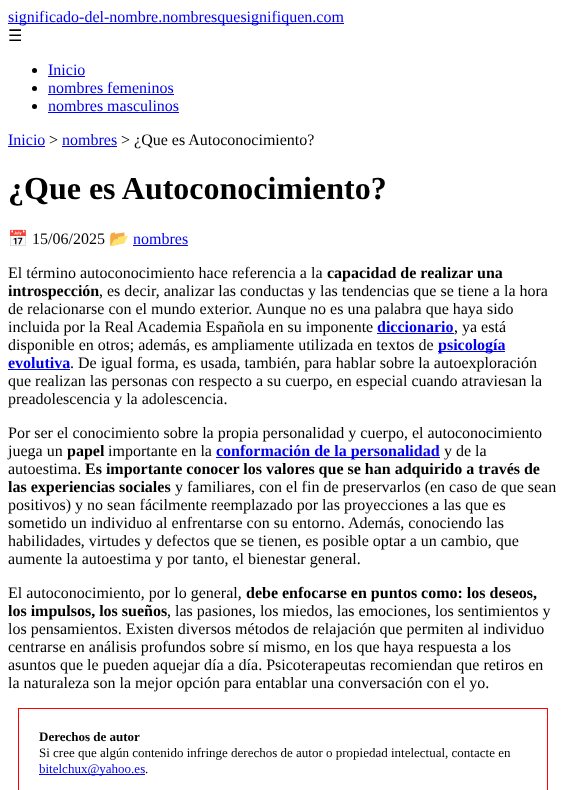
<?xml version="1.0" encoding="UTF-8"?>
<svg xmlns="http://www.w3.org/2000/svg" xmlns:xlink="http://www.w3.org/1999/xlink" width="566" height="790">
  <rect width="100%" height="100%" fill="#ffffff" />
  <rect x="8" y="23" width="336" height="1" fill="#0000ee" />
  <circle cx="34.5" cy="70.5" r="2.5" fill="#000000" />
  <rect x="48" y="76" width="37" height="1" fill="#0000ee" />
  <circle cx="34.5" cy="88.5" r="2.5" fill="#000000" />
  <rect x="48" y="94" width="126" height="1" fill="#0000ee" />
  <circle cx="34.5" cy="106.5" r="2.5" fill="#000000" />
  <rect x="48" y="112" width="131" height="1" fill="#0000ee" />
  <rect x="8" y="146" width="37" height="1" fill="#0000ee" />
  <rect x="62" y="146" width="55" height="1" fill="#0000ee" />
  <rect x="133" y="245" width="55" height="1" fill="#0000ee" />
  <rect x="377" y="333" width="77" height="1" fill="#0000ee" />
  <rect x="438" y="351" width="67" height="1" fill="#0000ee" />
  <rect x="8" y="369" width="62" height="1" fill="#0000ee" />
  <rect x="216" y="457" width="224" height="1" fill="#0000ee" />
  <rect x="18.5" y="708.5" width="529" height="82" fill="none" stroke="#ff0000" />
  <rect x="39" y="774" width="106" height="1" fill="#0000ee" />
  <text x="8" y="22" style="font-family: Liberation Serif; font-size: 16px; fill: #0000ee">significado-del-nombre.nombresquesignifiquen.com</text>
  <text x="8" y="41" style="font-family: DejaVu Sans; font-size: 16px; fill: #000000">☰</text>
  <text x="48" y="75" style="font-family: Liberation Serif; font-size: 16px; fill: #0000ee">Inicio</text>
  <text x="48" y="93" style="font-family: Liberation Serif; font-size: 16px; fill: #0000ee">nombres femeninos</text>
  <text x="48" y="111" style="font-family: Liberation Serif; font-size: 16px; fill: #0000ee">nombres masculinos</text>
  <text x="8" y="145" style="font-family: Liberation Serif; font-size: 16px; fill: #0000ee">Inicio</text>
  <text x="49" y="145" style="font-family: Liberation Serif; font-size: 16px; fill: #000000">&gt;</text>
  <text x="62" y="145" style="font-family: Liberation Serif; font-size: 16px; fill: #0000ee">nombres</text>
  <text x="121" y="145" style="font-family: Liberation Serif; font-size: 16px; fill: #000000">&gt; ¿Que es Autoconocimiento?</text>
  <text x="8" y="199" style="font-family: Liberation Serif; font-size: 32px; font-weight: bold; fill: #000000">¿Que es Autoconocimiento?</text>
  <text x="8" y="244" style="font-family: Noto Color Emoji; font-size: 16px; fill: #000000">📅</text>
  <text x="32" y="244" style="font-family: Liberation Serif; font-size: 16px; fill: #000000">15/06/2025</text>
  <text x="109" y="244" style="font-family: Noto Color Emoji; font-size: 16px; fill: #000000">📂</text>
  <text x="133" y="244" style="font-family: Liberation Serif; font-size: 16px; fill: #0000ee">nombres</text>
  <text x="8" y="278" style="font-family: Liberation Serif; font-size: 16px; fill: #000000">El término autoconocimiento hace referencia a la</text>
  <text x="327" y="278" style="font-family: Liberation Serif; font-size: 16px; font-weight: bold; fill: #000000">capacidad de realizar una</text>
  <text x="8" y="296" style="font-family: Liberation Serif; font-size: 16px; font-weight: bold; fill: #000000">introspección</text>
  <text x="99" y="296" style="font-family: Liberation Serif; font-size: 16px; fill: #000000">, es decir, analizar las conductas y las tendencias que se tiene a la hora</text>
  <text x="8" y="314" style="font-family: Liberation Serif; font-size: 16px; fill: #000000">de relacionarse con el mundo exterior. Aunque no es una palabra que haya sido</text>
  <text x="8" y="332" style="font-family: Liberation Serif; font-size: 16px; fill: #000000">incluida por la Real Academia Española en su imponente</text>
  <text x="377" y="332" style="font-family: Liberation Serif; font-size: 16px; font-weight: bold; fill: #0000ee">diccionario</text>
  <text x="454" y="332" style="font-family: Liberation Serif; font-size: 16px; fill: #000000">, ya está</text>
  <text x="8" y="350" style="font-family: Liberation Serif; font-size: 16px; fill: #000000">disponible en otros; además, es ampliamente utilizada en textos de</text>
  <text x="438" y="350" style="font-family: Liberation Serif; font-size: 16px; font-weight: bold; fill: #0000ee">psicología</text>
  <text x="8" y="368" style="font-family: Liberation Serif; font-size: 16px; font-weight: bold; fill: #0000ee">evolutiva</text>
  <text x="70" y="368" style="font-family: Liberation Serif; font-size: 16px; fill: #000000">. De igual forma, es usada, también, para hablar sobre la autoexploración</text>
  <text x="8" y="386" style="font-family: Liberation Serif; font-size: 16px; fill: #000000">que realizan las personas con respecto a su cuerpo, en especial cuando atraviesan la</text>
  <text x="8" y="404" style="font-family: Liberation Serif; font-size: 16px; fill: #000000">preadolescencia y la adolescencia.</text>
  <text x="8" y="438" style="font-family: Liberation Serif; font-size: 16px; fill: #000000">Por ser el conocimiento sobre la propia personalidad y cuerpo, el autoconocimiento</text>
  <text x="8" y="456" style="font-family: Liberation Serif; font-size: 16px; fill: #000000">juega un</text>
  <text x="67" y="456" style="font-family: Liberation Serif; font-size: 16px; font-weight: bold; fill: #000000">papel</text>
  <text x="108" y="456" style="font-family: Liberation Serif; font-size: 16px; fill: #000000">importante en la</text>
  <text x="216" y="456" style="font-family: Liberation Serif; font-size: 16px; font-weight: bold; fill: #0000ee">conformación de la personalidad</text>
  <text x="444" y="456" style="font-family: Liberation Serif; font-size: 16px; fill: #000000">y de la</text>
  <text x="8" y="474" style="font-family: Liberation Serif; font-size: 16px; fill: #000000">autoestima.</text>
  <text x="85" y="474" style="font-family: Liberation Serif; font-size: 16px; font-weight: bold; fill: #000000">Es importante conocer los valores que se han adquirido a través de</text>
  <text x="8" y="492" style="font-family: Liberation Serif; font-size: 16px; font-weight: bold; fill: #000000">las experiencias sociales</text>
  <text x="175" y="492" style="font-family: Liberation Serif; font-size: 16px; fill: #000000">y familiares, con el fin de preservarlos (en caso de que sean</text>
  <text x="8" y="510" style="font-family: Liberation Serif; font-size: 16px; fill: #000000">positivos) y no sean fácilmente reemplazado por las proyecciones a las que es</text>
  <text x="8" y="528" style="font-family: Liberation Serif; font-size: 16px; fill: #000000">sometido un individuo al enfrentarse con su entorno. Además, conociendo las</text>
  <text x="8" y="546" style="font-family: Liberation Serif; font-size: 16px; fill: #000000">habilidades, virtudes y defectos que se tienen, es posible optar a un cambio, que</text>
  <text x="8" y="564" style="font-family: Liberation Serif; font-size: 16px; fill: #000000">aumente la autoestima y por tanto, el bienestar general.</text>
  <text x="8" y="598" style="font-family: Liberation Serif; font-size: 16px; fill: #000000">El autoconocimiento, por lo general,</text>
  <text x="246" y="598" style="font-family: Liberation Serif; font-size: 16px; font-weight: bold; fill: #000000">debe enfocarse en puntos como: los deseos,</text>
  <text x="8" y="616" style="font-family: Liberation Serif; font-size: 16px; font-weight: bold; fill: #000000">los impulsos, los sueños</text>
  <text x="167" y="616" style="font-family: Liberation Serif; font-size: 16px; fill: #000000">, las pasiones, los miedos, las emociones, los sentimientos y</text>
  <text x="8" y="634" style="font-family: Liberation Serif; font-size: 16px; fill: #000000">los pensamientos. Existen diversos métodos de relajación que permiten al individuo</text>
  <text x="8" y="652" style="font-family: Liberation Serif; font-size: 16px; fill: #000000">centrarse en análisis profundos sobre sí mismo, en los que haya respuesta a los</text>
  <text x="8" y="670" style="font-family: Liberation Serif; font-size: 16px; fill: #000000">asuntos que le pueden aquejar día a día. Psicoterapeutas recomiendan que retiros en</text>
  <text x="8" y="688" style="font-family: Liberation Serif; font-size: 16px; fill: #000000">la naturaleza son la mejor opción para entablar una conversación con el yo.</text>
  <text x="39" y="741" style="font-family: Liberation Serif; font-size: 13px; font-weight: bold; fill: #000000">Derechos de autor</text>
  <text x="39" y="757" style="font-family: Liberation Serif; font-size: 13px; fill: #000000">Si cree que algún contenido infringe derechos de autor o propiedad intelectual, contacte en</text>
  <text x="39" y="773" style="font-family: Liberation Serif; font-size: 13px; fill: #0000ee">bitelchux@yahoo.es</text>
  <text x="145" y="773" style="font-family: Liberation Serif; font-size: 13px; fill: #000000">.</text>
</svg>
